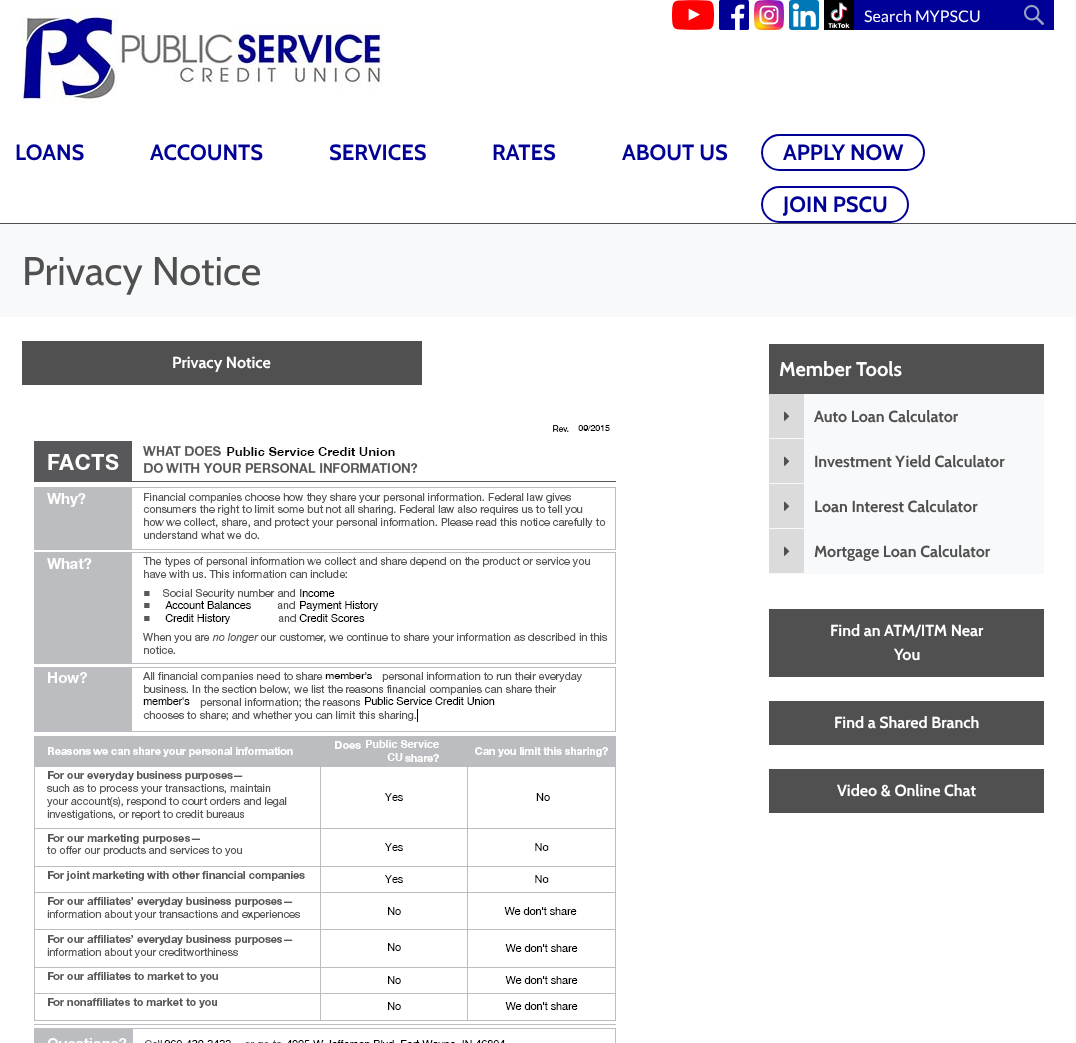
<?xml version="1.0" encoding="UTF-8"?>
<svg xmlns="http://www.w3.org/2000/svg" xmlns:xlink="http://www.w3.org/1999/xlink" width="1076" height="1043">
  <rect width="100%" height="100%" fill="#ffffff" />
  <rect y="223" width="1076" height="1" fill="#505050" />
  <image x="672" y="0" width="42" height="30" xlink:href="image1.png" />
  <image x="719" y="0" width="30" height="30" xlink:href="image2.png" />
  <image x="754" y="0" width="30" height="30" xlink:href="image3.png" />
  <image x="789" y="0" width="30" height="30" xlink:href="image4.png" />
  <image x="824" y="0" width="30" height="30" xlink:href="image5.png" />
  <rect x="854" width="200" height="30" fill="#000096" />
  <image x="1024" y="5" width="20" height="20" xlink:href="image6.png" />
  <image x="22" y="9" width="360" height="96" xlink:href="image7.png" />
  <rect x="762" y="135" width="162" height="35" rx="17.5" fill="none" stroke="#000096" stroke-width="2" />
  <rect x="762" y="187" width="146" height="35" rx="17.5" fill="none" stroke="#000096" stroke-width="2" />
  <rect y="224" width="1076" height="93" fill="#f8f9fa" />
  <rect x="22" y="341" width="400" height="44" fill="#505050" />
  <image x="34" y="425" width="582" height="618" xlink:href="image8.png" />
  <rect x="769" y="344" width="275" height="50" fill="#505050" />
  <rect x="769" y="394" width="275" height="180" fill="#f8f9fa" />
  <rect x="769" y="394" width="35" height="44" fill="#dbdbdb" />
  <image x="784" y="411" width="6" height="10" xlink:href="image9.png" />
  <rect x="769" y="439" width="35" height="44" fill="#dbdbdb" />
  <image x="784" y="456" width="6" height="10" xlink:href="image9.png" />
  <rect x="769" y="484" width="35" height="44" fill="#dbdbdb" />
  <image x="784" y="501" width="6" height="10" xlink:href="image9.png" />
  <rect x="769" y="529" width="35" height="44" fill="#dbdbdb" />
  <image x="784" y="546" width="6" height="10" xlink:href="image9.png" />
  <rect x="769" y="609" width="275" height="68" fill="#505050" />
  <rect x="769" y="701" width="275" height="44" fill="#505050" />
  <rect x="769" y="769" width="275" height="44" fill="#505050" />
  <text x="864" y="22" style="font-family: Lato; font-size: 16px; fill: #ffffff">Search MYPSCU</text>
  <text x="15" y="160" style="font-family: Cabin; font-size: 22px; font-weight: bold; fill: #000096">LOANS</text>
  <text x="150" y="160" style="font-family: Cabin; font-size: 22px; font-weight: bold; fill: #000096">ACCOUNTS</text>
  <text x="329" y="160" style="font-family: Cabin; font-size: 22px; font-weight: bold; fill: #000096">SERVICES</text>
  <text x="492" y="160" style="font-family: Cabin; font-size: 22px; font-weight: bold; fill: #000096">RATES</text>
  <text x="622" y="160" style="font-family: Cabin; font-size: 22px; font-weight: bold; fill: #000096">ABOUT US</text>
  <text x="783" y="160" style="font-family: Cabin; font-size: 22px; font-weight: bold; fill: #000096">APPLY NOW</text>
  <text x="783" y="212" style="font-family: Cabin; font-size: 22px; font-weight: bold; fill: #000096">JOIN PSCU</text>
  <text x="22" y="285" style="font-family: Cabin; font-size: 40px; fill: #505050">Privacy Notice</text>
  <text x="172" y="368" style="font-family: Cabin; font-size: 16px; font-weight: bold; fill: #ffffff">Privacy Notice</text>
  <text x="779" y="376" style="font-family: Cabin; font-size: 20px; font-weight: bold; fill: #ffffff">Member Tools</text>
  <text x="814" y="422" style="font-family: Cabin; font-size: 16px; font-weight: bold; fill: #505050">Auto Loan Calculator</text>
  <text x="814" y="467" style="font-family: Cabin; font-size: 16px; font-weight: bold; fill: #505050">Investment Yield Calculator</text>
  <text x="814" y="512" style="font-family: Cabin; font-size: 16px; font-weight: bold; fill: #505050">Loan Interest Calculator</text>
  <text x="814" y="557" style="font-family: Cabin; font-size: 16px; font-weight: bold; fill: #505050">Mortgage Loan Calculator</text>
  <text x="830" y="636" style="font-family: Cabin; font-size: 16px; font-weight: bold; fill: #ffffff">Find an ATM/ITM Near</text>
  <text x="894" y="660" style="font-family: Cabin; font-size: 16px; font-weight: bold; fill: #ffffff">You</text>
  <text x="834" y="728" style="font-family: Cabin; font-size: 16px; font-weight: bold; fill: #ffffff">Find a Shared Branch</text>
  <text x="837" y="796" style="font-family: Cabin; font-size: 16px; font-weight: bold; fill: #ffffff">Video &amp; Online Chat</text>
</svg>
